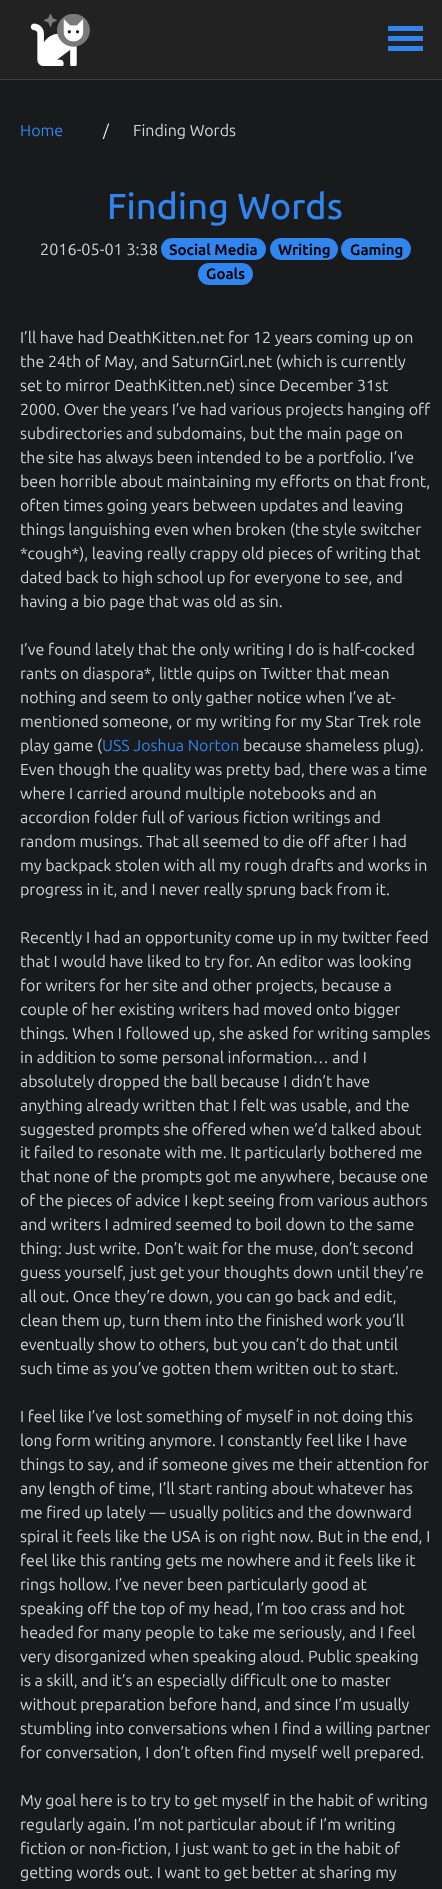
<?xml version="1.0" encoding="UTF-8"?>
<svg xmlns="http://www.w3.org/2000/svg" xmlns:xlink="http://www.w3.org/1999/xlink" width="442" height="1889">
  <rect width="100%" height="100%" fill="#181a1b" />
  <rect width="442" height="79" fill="#222222" />
  <rect y="79" width="442" height="1" fill="#3e3f42" />
  <image x="30" y="14" width="60" height="52" xlink:href="image1.png" />
  <rect x="388" y="26" width="35" height="5" fill="#3085ee" />
  <rect x="388" y="36" width="35" height="5" fill="#3085ee" />
  <rect x="388" y="46" width="35" height="5" fill="#3085ee" />
  <rect x="161" y="238" width="105" height="22" rx="11" fill="#3085ee" />
  <rect x="270" y="238" width="68" height="22" rx="11" fill="#3085ee" />
  <rect x="341" y="238" width="70" height="22" rx="11" fill="#3085ee" />
  <rect x="198" y="263" width="55" height="22" rx="11" fill="#3085ee" />
  <text x="20" y="136" style="font-family: Ubuntu; font-size: 16px; fill: #3085ee">Home</text>
  <text x="103" y="136" style="font-family: Ubuntu; font-size: 16px; fill: #e7e9ed">/</text>
  <text x="133" y="136" style="font-family: Ubuntu; font-size: 16px; fill: #d4d4d4">Finding Words</text>
  <text x="107" y="219" style="font-family: Ubuntu; font-size: 36px; font-weight: 500; fill: #3085ee">Finding Words</text>
  <text x="40" y="255" style="font-family: Ubuntu; font-size: 16.25px; fill: #d4d4d4">2016-05-01 3:38</text>
  <text x="169" y="255" style="font-family: Ubuntu; font-size: 15px; font-weight: bold; fill: #000000">Social Media</text>
  <text x="278" y="255" style="font-family: Ubuntu; font-size: 15px; font-weight: bold; fill: #000000">Writing</text>
  <text x="350" y="255" style="font-family: Ubuntu; font-size: 15px; font-weight: bold; fill: #000000">Gaming</text>
  <text x="206" y="279" style="font-family: Ubuntu; font-size: 15px; font-weight: bold; fill: #000000">Goals</text>
  <text x="20" y="343" style="font-family: Ubuntu; font-size: 16px; fill: #d4d4d4">I’ll have had DeathKitten.net for 12 years coming up on</text>
  <text x="20" y="367" style="font-family: Ubuntu; font-size: 16px; fill: #d4d4d4">the 24th of May, and SaturnGirl.net (which is currently</text>
  <text x="20" y="391" style="font-family: Ubuntu; font-size: 16px; fill: #d4d4d4">set to mirror DeathKitten.net) since December 31st</text>
  <text x="20" y="415" style="font-family: Ubuntu; font-size: 16px; fill: #d4d4d4">2000. Over the years I’ve had various projects hanging off</text>
  <text x="20" y="439" style="font-family: Ubuntu; font-size: 16px; fill: #d4d4d4">subdirectories and subdomains, but the main page on</text>
  <text x="20" y="463" style="font-family: Ubuntu; font-size: 16px; fill: #d4d4d4">the site has always been intended to be a portfolio. I’ve</text>
  <text x="20" y="487" style="font-family: Ubuntu; font-size: 16px; fill: #d4d4d4">been horrible about maintaining my efforts on that front,</text>
  <text x="20" y="511" style="font-family: Ubuntu; font-size: 16px; fill: #d4d4d4">often times going years between updates and leaving</text>
  <text x="20" y="535" style="font-family: Ubuntu; font-size: 16px; fill: #d4d4d4">things languishing even when broken (the style switcher</text>
  <text x="20" y="559" style="font-family: Ubuntu; font-size: 16px; fill: #d4d4d4">*cough*), leaving really crappy old pieces of writing that</text>
  <text x="20" y="583" style="font-family: Ubuntu; font-size: 16px; fill: #d4d4d4">dated back to high school up for everyone to see, and</text>
  <text x="20" y="607" style="font-family: Ubuntu; font-size: 16px; fill: #d4d4d4">having a bio page that was old as sin.</text>
  <text x="20" y="655" style="font-family: Ubuntu; font-size: 16px; fill: #d4d4d4">I’ve found lately that the only writing I do is half-cocked</text>
  <text x="20" y="679" style="font-family: Ubuntu; font-size: 16px; fill: #d4d4d4">rants on diaspora*, little quips on Twitter that mean</text>
  <text x="20" y="703" style="font-family: Ubuntu; font-size: 16px; fill: #d4d4d4">nothing and seem to only gather notice when I’ve at-</text>
  <text x="20" y="727" style="font-family: Ubuntu; font-size: 16px; fill: #d4d4d4">mentioned someone, or my writing for my Star Trek role</text>
  <text x="20" y="751" style="font-family: Ubuntu; font-size: 16px; fill: #d4d4d4">play game (</text>
  <text x="102" y="751" style="font-family: Ubuntu; font-size: 16px; fill: #3085ee">USS Joshua Norton</text>
  <text x="243" y="751" style="font-family: Ubuntu; font-size: 16px; fill: #d4d4d4">because shameless plug).</text>
  <text x="20" y="775" style="font-family: Ubuntu; font-size: 16px; fill: #d4d4d4">Even though the quality was pretty bad, there was a time</text>
  <text x="20" y="799" style="font-family: Ubuntu; font-size: 16px; fill: #d4d4d4">where I carried around multiple notebooks and an</text>
  <text x="20" y="823" style="font-family: Ubuntu; font-size: 16px; fill: #d4d4d4">accordion folder full of various fiction writings and</text>
  <text x="20" y="847" style="font-family: Ubuntu; font-size: 16px; fill: #d4d4d4">random musings. That all seemed to die off after I had</text>
  <text x="20" y="871" style="font-family: Ubuntu; font-size: 16px; fill: #d4d4d4">my backpack stolen with all my rough drafts and works in</text>
  <text x="20" y="895" style="font-family: Ubuntu; font-size: 16px; fill: #d4d4d4">progress in it, and I never really sprung back from it.</text>
  <text x="20" y="943" style="font-family: Ubuntu; font-size: 16px; fill: #d4d4d4">Recently I had an opportunity come up in my twitter feed</text>
  <text x="20" y="967" style="font-family: Ubuntu; font-size: 16px; fill: #d4d4d4">that I would have liked to try for. An editor was looking</text>
  <text x="20" y="991" style="font-family: Ubuntu; font-size: 16px; fill: #d4d4d4">for writers for her site and other projects, because a</text>
  <text x="20" y="1015" style="font-family: Ubuntu; font-size: 16px; fill: #d4d4d4">couple of her existing writers had moved onto bigger</text>
  <text x="20" y="1039" style="font-family: Ubuntu; font-size: 16px; fill: #d4d4d4">things. When I followed up, she asked for writing samples</text>
  <text x="20" y="1063" style="font-family: Ubuntu; font-size: 16px; fill: #d4d4d4">in addition to some personal information… and I</text>
  <text x="20" y="1087" style="font-family: Ubuntu; font-size: 16px; fill: #d4d4d4">absolutely dropped the ball because I didn’t have</text>
  <text x="20" y="1111" style="font-family: Ubuntu; font-size: 16px; fill: #d4d4d4">anything already written that I felt was usable, and the</text>
  <text x="20" y="1135" style="font-family: Ubuntu; font-size: 16px; fill: #d4d4d4">suggested prompts she offered when we’d talked about</text>
  <text x="20" y="1158" style="font-family: Ubuntu; font-size: 16px; fill: #d4d4d4">it failed to resonate with me. It particularly bothered me</text>
  <text x="20" y="1182" style="font-family: Ubuntu; font-size: 16px; fill: #d4d4d4">that none of the prompts got me anywhere, because one</text>
  <text x="20" y="1206" style="font-family: Ubuntu; font-size: 16px; fill: #d4d4d4">of the pieces of advice I kept seeing from various authors</text>
  <text x="20" y="1230" style="font-family: Ubuntu; font-size: 16px; fill: #d4d4d4">and writers I admired seemed to boil down to the same</text>
  <text x="20" y="1254" style="font-family: Ubuntu; font-size: 16px; fill: #d4d4d4">thing: Just write. Don’t wait for the muse, don’t second</text>
  <text x="20" y="1278" style="font-family: Ubuntu; font-size: 16px; fill: #d4d4d4">guess yourself, just get your thoughts down until they’re</text>
  <text x="20" y="1302" style="font-family: Ubuntu; font-size: 16px; fill: #d4d4d4">all out. Once they’re down, you can go back and edit,</text>
  <text x="20" y="1326" style="font-family: Ubuntu; font-size: 16px; fill: #d4d4d4">clean them up, turn them into the finished work you’ll</text>
  <text x="20" y="1350" style="font-family: Ubuntu; font-size: 16px; fill: #d4d4d4">eventually show to others, but you can’t do that until</text>
  <text x="20" y="1374" style="font-family: Ubuntu; font-size: 16px; fill: #d4d4d4">such time as you’ve gotten them written out to start.</text>
  <text x="20" y="1422" style="font-family: Ubuntu; font-size: 16px; fill: #d4d4d4">I feel like I’ve lost something of myself in not doing this</text>
  <text x="20" y="1446" style="font-family: Ubuntu; font-size: 16px; fill: #d4d4d4">long form writing anymore. I constantly feel like I have</text>
  <text x="20" y="1470" style="font-family: Ubuntu; font-size: 16px; fill: #d4d4d4">things to say, and if someone gives me their attention for</text>
  <text x="20" y="1494" style="font-family: Ubuntu; font-size: 16px; fill: #d4d4d4">any length of time, I’ll start ranting about whatever has</text>
  <text x="20" y="1518" style="font-family: Ubuntu; font-size: 16px; fill: #d4d4d4">me fired up lately — usually politics and the downward</text>
  <text x="20" y="1542" style="font-family: Ubuntu; font-size: 16px; fill: #d4d4d4">spiral it feels like the USA is on right now. But in the end, I</text>
  <text x="20" y="1566" style="font-family: Ubuntu; font-size: 16px; fill: #d4d4d4">feel like this ranting gets me nowhere and it feels like it</text>
  <text x="20" y="1590" style="font-family: Ubuntu; font-size: 16px; fill: #d4d4d4">rings hollow. I’ve never been particularly good at</text>
  <text x="20" y="1614" style="font-family: Ubuntu; font-size: 16px; fill: #d4d4d4">speaking off the top of my head, I’m too crass and hot</text>
  <text x="20" y="1638" style="font-family: Ubuntu; font-size: 16px; fill: #d4d4d4">headed for many people to take me seriously, and I feel</text>
  <text x="20" y="1662" style="font-family: Ubuntu; font-size: 16px; fill: #d4d4d4">very disorganized when speaking aloud. Public speaking</text>
  <text x="20" y="1686" style="font-family: Ubuntu; font-size: 16px; fill: #d4d4d4">is a skill, and it’s an especially difficult one to master</text>
  <text x="20" y="1710" style="font-family: Ubuntu; font-size: 16px; fill: #d4d4d4">without preparation before hand, and since I’m usually</text>
  <text x="20" y="1734" style="font-family: Ubuntu; font-size: 16px; fill: #d4d4d4">stumbling into conversations when I find a willing partner</text>
  <text x="20" y="1758" style="font-family: Ubuntu; font-size: 16px; fill: #d4d4d4">for conversation, I don’t often find myself well prepared.</text>
  <text x="20" y="1806" style="font-family: Ubuntu; font-size: 16px; fill: #d4d4d4">My goal here is to try to get myself in the habit of writing</text>
  <text x="20" y="1830" style="font-family: Ubuntu; font-size: 16px; fill: #d4d4d4">regularly again. I’m not particular about if I’m writing</text>
  <text x="20" y="1854" style="font-family: Ubuntu; font-size: 16px; fill: #d4d4d4">fiction or non-fiction, I just want to get in the habit of</text>
  <text x="20" y="1878" style="font-family: Ubuntu; font-size: 16px; fill: #d4d4d4">getting words out. I want to get better at sharing my</text>
</svg>
